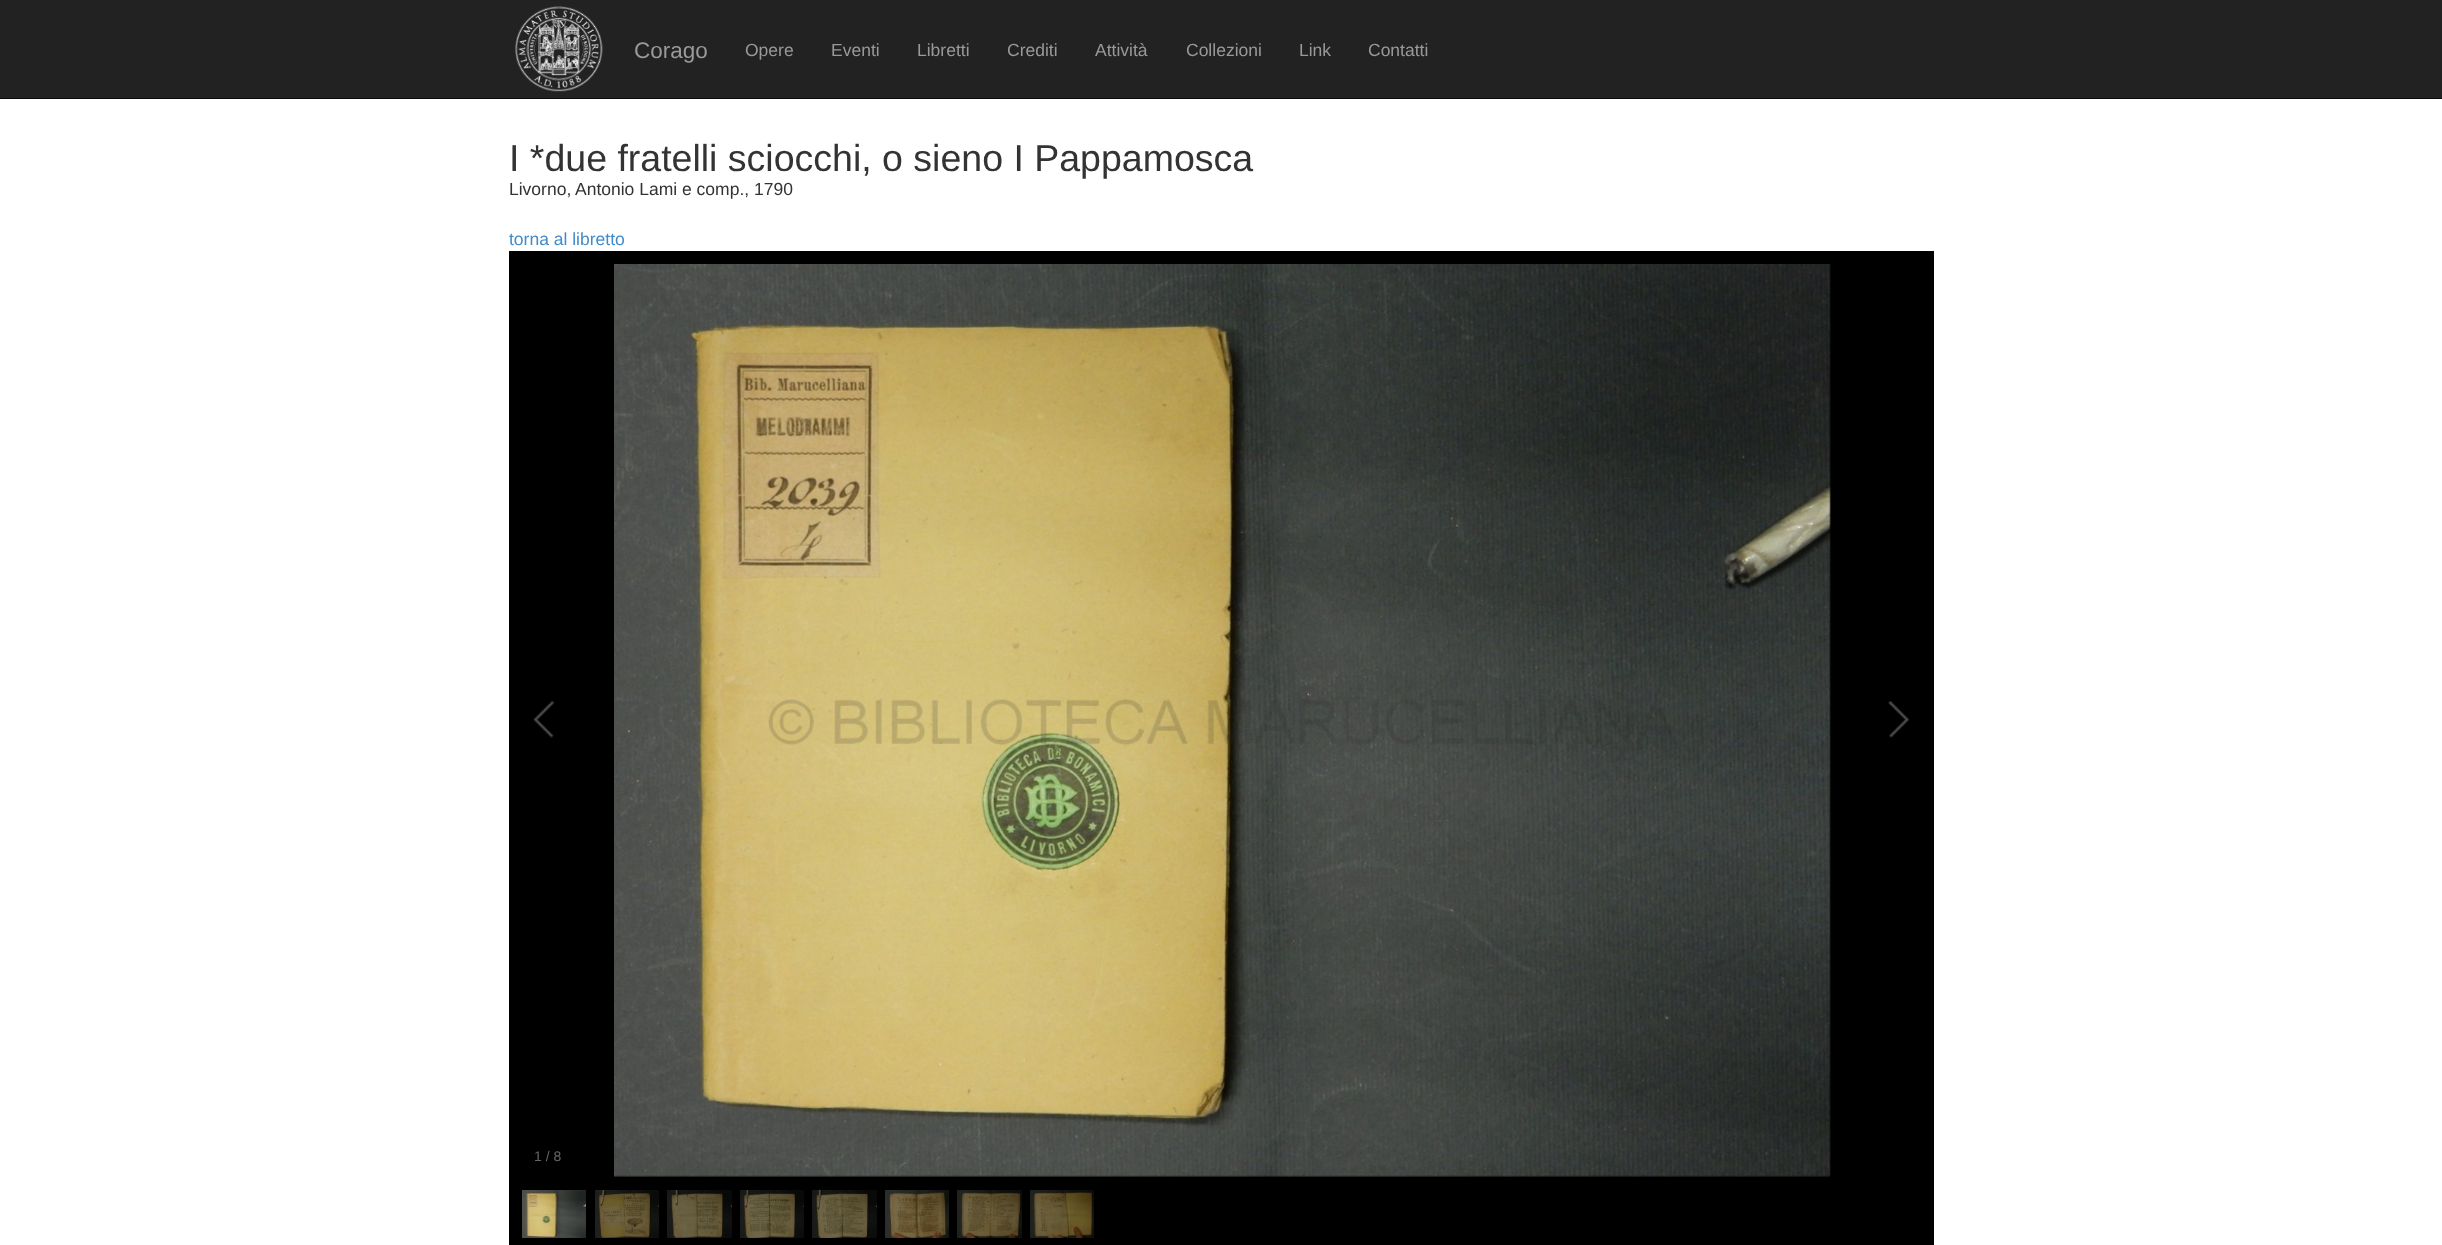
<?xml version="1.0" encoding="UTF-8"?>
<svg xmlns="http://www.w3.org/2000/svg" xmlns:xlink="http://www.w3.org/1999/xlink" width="2442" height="1245">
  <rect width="100%" height="100%" fill="#ffffff" />
  <rect width="2442" height="98" fill="#222222" />
  <rect y="98" width="2442" height="1" fill="#080808" />
  <image x="515" y="6" width="88" height="86" xlink:href="image1.png" />
  <rect x="509" y="251" width="1425" height="994" fill="#000000" />
  <image x="614" y="264" width="1217" height="913" xlink:href="image2.png" />
  <image x="533" y="701" width="21" height="37" xlink:href="image3.png" />
  <image x="1888" y="701" width="21" height="37" xlink:href="image4.png" />
  <image x="522" y="1190" width="64" height="48" xlink:href="image5.png" />
  <image x="595" y="1190" width="64" height="48" xlink:href="image6.png" />
  <image x="667" y="1190" width="65" height="48" xlink:href="image7.png" />
  <image x="740" y="1190" width="64" height="48" xlink:href="image8.png" />
  <image x="812" y="1190" width="65" height="48" xlink:href="image9.png" />
  <image x="885" y="1190" width="64" height="48" xlink:href="image10.png" />
  <image x="957" y="1190" width="65" height="48" xlink:href="image11.png" />
  <image x="1030" y="1190" width="64" height="48" xlink:href="image12.png" />
  <text x="634" y="58" style="font-family: Liberation Sans; font-size: 22.5px; fill: #999999">Corago</text>
  <text x="745" y="56" style="font-family: Liberation Sans; font-size: 17.5px; fill: #999999">Opere</text>
  <text x="831" y="56" style="font-family: Liberation Sans; font-size: 17.5px; fill: #999999">Eventi</text>
  <text x="917" y="56" style="font-family: Liberation Sans; font-size: 17.5px; fill: #999999">Libretti</text>
  <text x="1007" y="56" style="font-family: Liberation Sans; font-size: 17.5px; fill: #999999">Crediti</text>
  <text x="1095" y="56" style="font-family: Liberation Sans; font-size: 17.5px; fill: #999999">Attività</text>
  <text x="1186" y="56" style="font-family: Liberation Sans; font-size: 17.5px; fill: #999999">Collezioni</text>
  <text x="1299" y="56" style="font-family: Liberation Sans; font-size: 17.5px; fill: #999999">Link</text>
  <text x="1368" y="56" style="font-family: Liberation Sans; font-size: 17.5px; fill: #999999">Contatti</text>
  <text x="509" y="171" style="font-family: Liberation Sans; font-size: 37.5px; fill: #333333">I *due fratelli sciocchi, o sieno I Pappamosca</text>
  <text x="509" y="195" style="font-family: Liberation Sans; font-size: 17.5px; fill: #333333">Livorno,</text>
  <text x="575" y="195" style="font-family: Liberation Sans; font-size: 17.5px; fill: #333333">Antonio Lami e comp., 1790</text>
  <text x="509" y="245" style="font-family: Liberation Sans; font-size: 17.5px; fill: #428bca">torna al libretto</text>
  <text x="534" y="1161" style="font-family: Liberation Sans; font-size: 14px; fill: #666666">1 / 8</text>
</svg>
